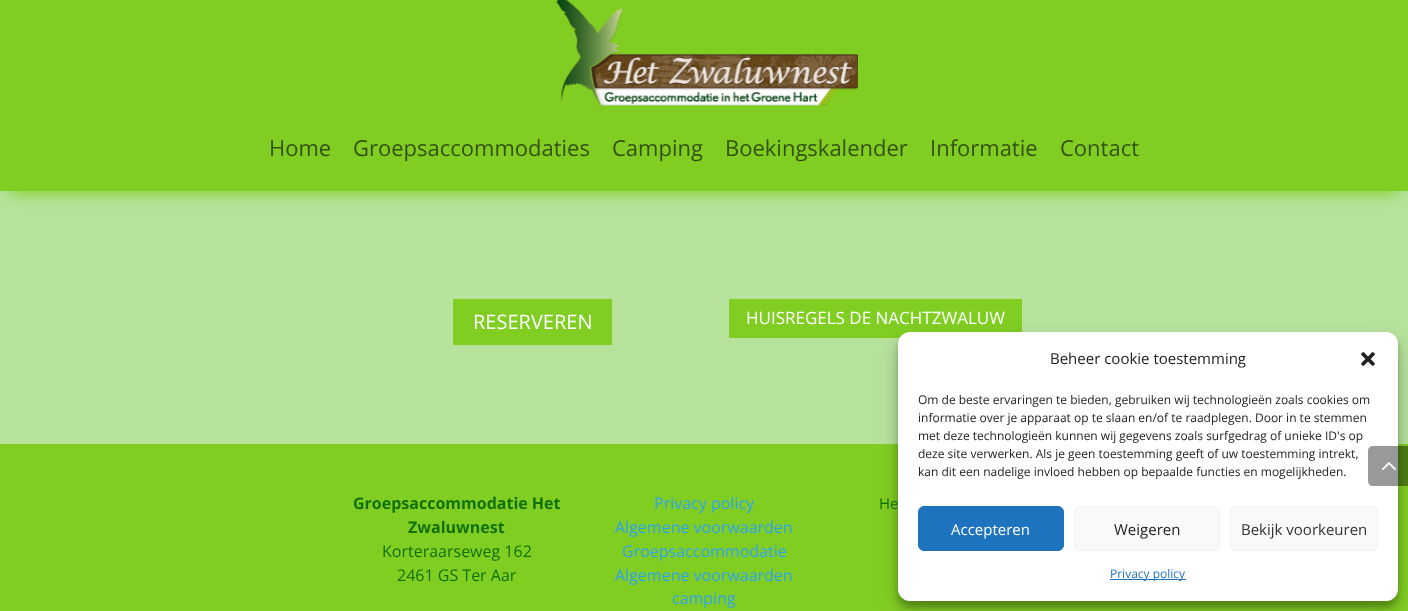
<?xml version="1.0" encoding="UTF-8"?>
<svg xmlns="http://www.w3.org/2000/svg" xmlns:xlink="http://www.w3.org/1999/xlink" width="1408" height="611">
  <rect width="100%" height="100%" fill="#b7e29c" />
  <rect x="10" y="22" width="1388" height="171" fill="#81ce23" filter="blur(8px)" />
  <rect width="1408" height="191" fill="#81ce23" />
  <image x="556" y="0" width="302" height="109" xlink:href="image1.png" />
  <rect x="453" y="299" width="159" height="46" fill="#81ce23" />
  <rect x="729" y="299" width="293" height="39" fill="#81ce23" />
  <rect y="444" width="1408" height="167" fill="#81ce23" />
  <rect x="898" y="338" width="500" height="269" rx="12" fill="#000000" fill-opacity="0.23" filter="blur(3px)" />
  <rect x="898" y="342" width="500" height="269" rx="12" fill="#000000" fill-opacity="0.19" filter="blur(10px)" />
  <rect x="898" y="332" width="500" height="269" rx="12" fill="#ffffff" />
  <image x="1361" y="352" width="14" height="14" xlink:href="image2.png" />
  <rect x="918.5" y="506.5" width="145" height="44" rx="5.5" fill="#1e73be" stroke="#1e73be" />
  <rect x="1074.5" y="506.5" width="145" height="44" rx="5.5" fill="#f9f9f9" stroke="#f2f2f2" />
  <rect x="1230.5" y="506.5" width="147" height="44" rx="5.5" fill="#f9f9f9" stroke="#f2f2f2" />
  <rect x="1110" y="579" width="76" height="1" fill="#1e73be" />
  <path d="M 1373 446 h 35 v 40 h -35 c -3 0 -5 -2 -5 -5 v -30 c 0 -3 2 -5 5 -5 z" fill="#000000" fill-opacity="0.4" />
  <image x="1382" y="462" width="14" height="8" xlink:href="image3.png" />
  <text x="269" y="156" style="font-family: Open Sans; font-size: 22px; fill: #34520e">Home</text>
  <text x="353" y="156" style="font-family: Open Sans; font-size: 22px; fill: #34520e">Groepsaccommodaties</text>
  <text x="612" y="156" style="font-family: Open Sans; font-size: 22px; fill: #34520e">Camping</text>
  <text x="725" y="156" style="font-family: Open Sans; font-size: 22px; fill: #34520e">Boekingskalender</text>
  <text x="930" y="156" style="font-family: Open Sans; font-size: 22px; fill: #34520e">Informatie</text>
  <text x="1060" y="156" style="font-family: Open Sans; font-size: 22px; fill: #34520e">Contact</text>
  <text x="473" y="329" style="font-family: Open Sans; font-size: 20px; fill: #ffffff">RESERVEREN</text>
  <text x="746" y="324" style="font-family: Open Sans; font-size: 17px; fill: #ffffff">HUISREGELS DE NACHTZWALUW</text>
  <text x="353" y="509" style="font-family: Open Sans; font-size: 16px; font-weight: bold; fill: #117006">Groepsaccommodatie Het</text>
  <text x="408" y="533" style="font-family: Open Sans; font-size: 16px; font-weight: bold; fill: #117006">Zwaluwnest</text>
  <text x="382" y="557" style="font-family: Open Sans; font-size: 16px; fill: #117006">Korteraarseweg 162</text>
  <text x="397" y="581" style="font-family: Open Sans; font-size: 16px; fill: #117006">2461 GS Ter Aar</text>
  <text x="654" y="509" style="font-family: Open Sans; font-size: 16px; fill: #2ea3f2">Privacy policy</text>
  <text x="615" y="533" style="font-family: Open Sans; font-size: 16px; fill: #2ea3f2">Algemene voorwaarden</text>
  <text x="622" y="557" style="font-family: Open Sans; font-size: 16px; fill: #2ea3f2">Groepsaccommodatie</text>
  <text x="615" y="581" style="font-family: Open Sans; font-size: 16px; fill: #2ea3f2">Algemene voorwaarden</text>
  <text x="672" y="604" style="font-family: Open Sans; font-size: 16px; fill: #2ea3f2">camping</text>
  <text x="879" y="509" style="font-family: Open Sans; font-size: 15px; fill: #117006">He</text>
  <text x="1050" y="364" style="font-family: Open Sans; font-size: 15px; fill: #222222">Beheer cookie toestemming</text>
  <text x="918" y="404" style="font-family: Open Sans; font-size: 12px; fill: #222222">Om de beste ervaringen te bieden, gebruiken wij technologieën zoals cookies om</text>
  <text x="918" y="422" style="font-family: Open Sans; font-size: 12px; fill: #222222">informatie over je apparaat op te slaan en/of te raadplegen. Door in te stemmen</text>
  <text x="918" y="440" style="font-family: Open Sans; font-size: 12px; fill: #222222">met deze technologieën kunnen wij gegevens zoals surfgedrag of unieke ID's op</text>
  <text x="918" y="458" style="font-family: Open Sans; font-size: 12px; fill: #222222">deze site verwerken. Als je geen toestemming geeft of uw toestemming intrekt,</text>
  <text x="918" y="476" style="font-family: Open Sans; font-size: 12px; fill: #222222">kan dit een nadelige invloed hebben op bepaalde functies en mogelijkheden.</text>
  <text x="951" y="535" style="font-family: Open Sans; font-size: 15px; fill: #ffffff">Accepteren</text>
  <text x="1114" y="535" style="font-family: Open Sans; font-size: 15px; fill: #222222">Weigeren</text>
  <text x="1241" y="535" style="font-family: Open Sans; font-size: 15px; fill: #333333">Bekijk voorkeuren</text>
  <text x="1110" y="578" style="font-family: Open Sans; font-size: 12px; fill: #1e73be">Privacy policy</text>
</svg>
